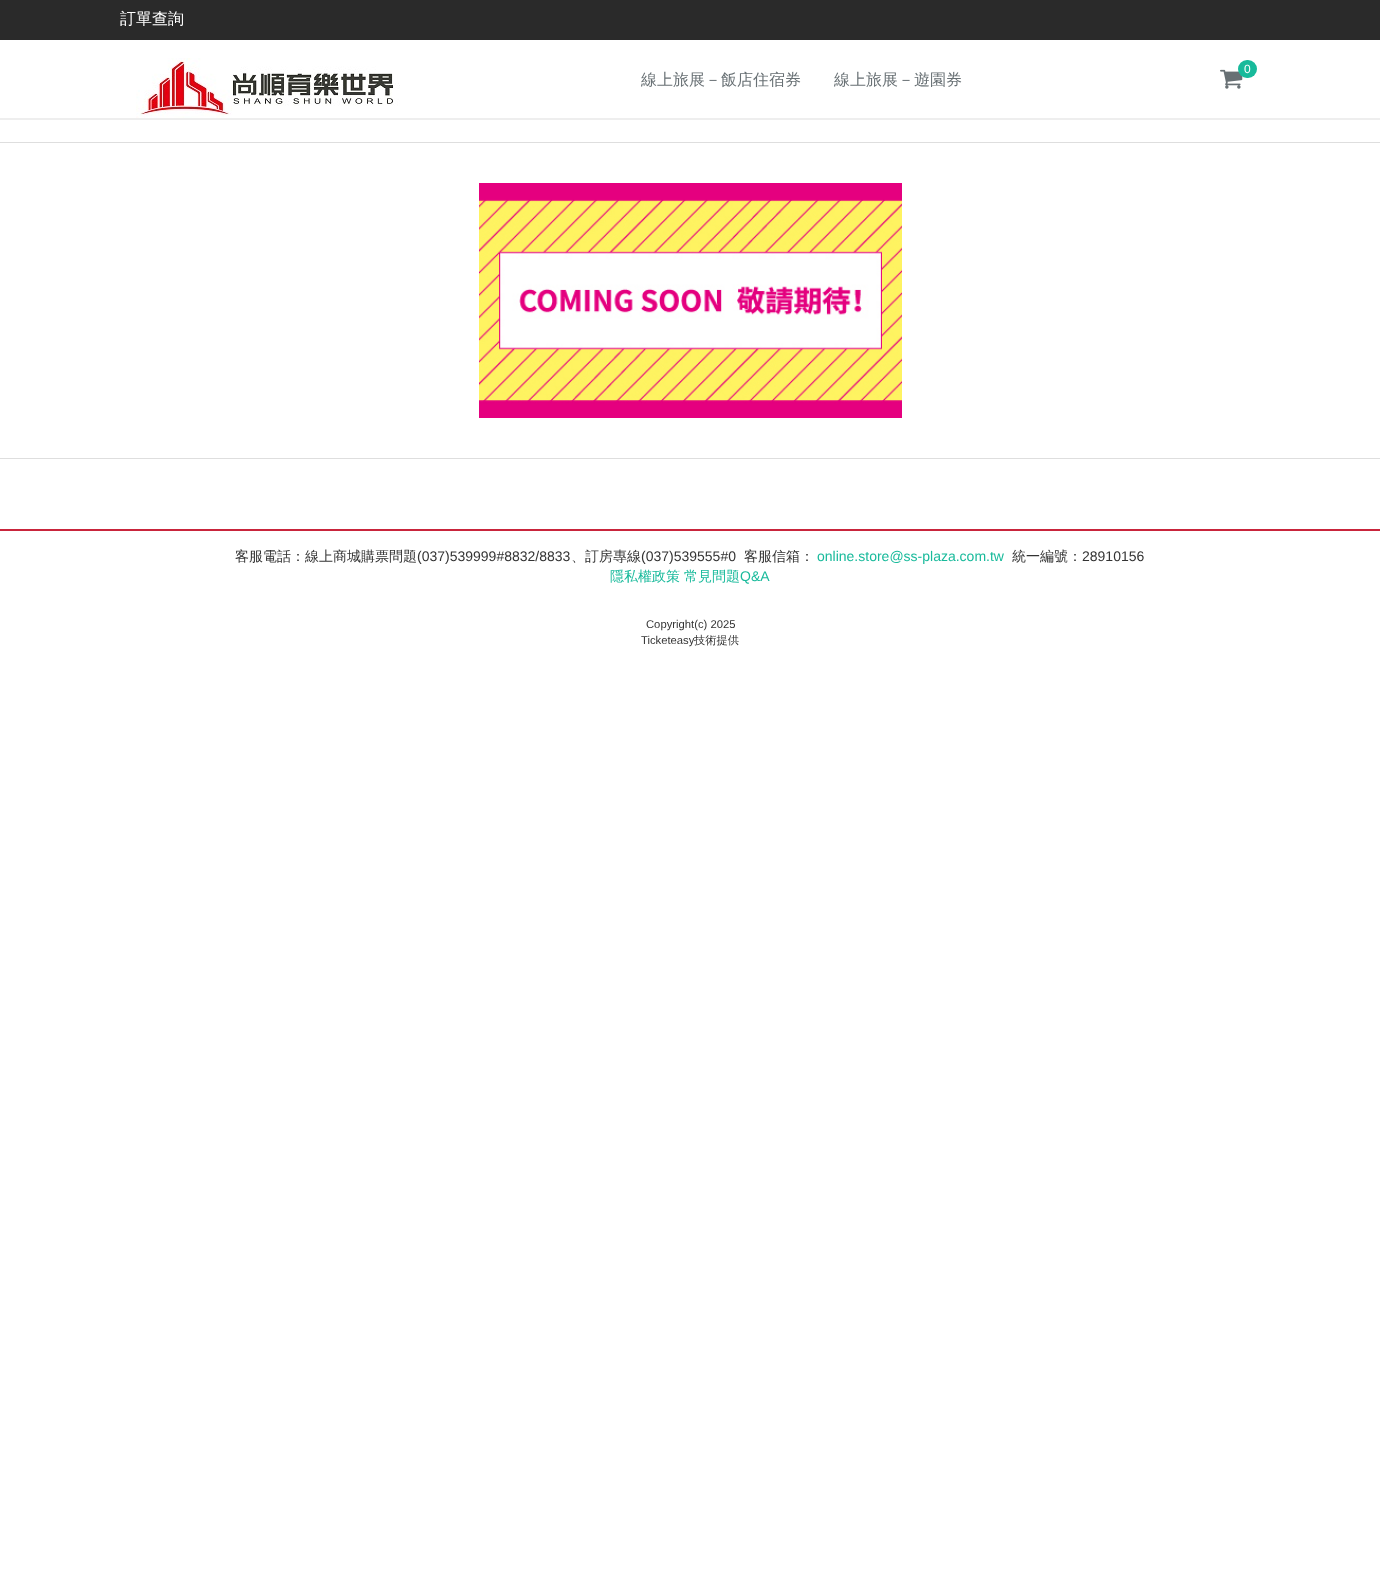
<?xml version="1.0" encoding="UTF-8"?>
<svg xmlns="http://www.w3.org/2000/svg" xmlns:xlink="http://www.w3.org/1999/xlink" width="1380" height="1581">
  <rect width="100%" height="100%" fill="#ffffff" />
  <rect y="118" width="1380" height="2" fill="#eeeeee" />
  <rect width="1380" height="40" fill="#2a2a2a" />
  <image x="136" y="58" width="264" height="60" xlink:href="image1.png" />
  <image x="1220" y="69" width="23" height="20" xlink:href="image2.png" />
  <rect x="1238" y="60" width="19" height="18" rx="9" fill="#18ba9b" />
  <rect y="142" width="1380" height="1" fill="#dedede" />
  <rect y="458" width="1380" height="1" fill="#dedede" />
  <image x="479" y="183" width="423" height="235" xlink:href="image3.png" />
  <rect y="529" width="1380" height="2" fill="#c9253c" />
  <text x="120" y="24" style="font-family: WenQuanYi Zen Hei; font-size: 16px; font-weight: 500; fill: #ffffff">訂單查詢</text>
  <text x="1244" y="73" style="font-family: Liberation Sans; font-size: 12px; fill: #ffffff">0</text>
  <text x="641" y="85" style="font-family: WenQuanYi Zen Hei; font-size: 16px; font-weight: 500; fill: #687074">線上旅展－飯店住宿券</text>
  <text x="834" y="85" style="font-family: WenQuanYi Zen Hei; font-size: 16px; font-weight: 500; fill: #687074">線上旅展－遊園券</text>
  <text x="235" y="561" style="font-family: WenQuanYi Zen Hei; font-size: 14px; font-weight: 500; fill: #333333">客服電話：線上商城購票問題</text>
  <text x="417" y="561" style="font-family: Liberation Sans; font-size: 14px; fill: #333333">(037)539999#8832/8833</text>
  <text x="571" y="561" style="font-family: WenQuanYi Zen Hei; font-size: 14px; font-weight: 500; fill: #333333">、訂房專線</text>
  <text x="641" y="561" style="font-family: Liberation Sans; font-size: 14px; fill: #333333">(037)539555#0</text>
  <text x="744" y="561" style="font-family: WenQuanYi Zen Hei; font-size: 14px; font-weight: 500; fill: #333333">客服信箱：</text>
  <text x="817" y="561" style="font-family: Liberation Sans; font-size: 14px; fill: #18ba9b">online.store@ss-plaza.com.tw</text>
  <text x="1012" y="561" style="font-family: WenQuanYi Zen Hei; font-size: 14px; font-weight: 500; fill: #333333">統一編號：</text>
  <text x="1082" y="561" style="font-family: Liberation Sans; font-size: 14px; fill: #333333">28910156</text>
  <text x="610" y="581" style="font-family: WenQuanYi Zen Hei; font-size: 14px; font-weight: 500; fill: #18ba9b">隱私權政策</text>
  <text x="684" y="581" style="font-family: WenQuanYi Zen Hei; font-size: 14px; font-weight: 500; fill: #18ba9b">常見問題</text>
  <text x="740" y="581" style="font-family: Liberation Sans; font-size: 14px; fill: #18ba9b">Q&amp;A</text>
  <text x="646" y="628" style="font-family: Liberation Sans; font-size: 11.25px; fill: #333333">Copyright(c) 2025</text>
  <text x="641" y="644" style="font-family: Liberation Sans; font-size: 11.25px; fill: #333333">Ticketeasy</text>
  <text x="694" y="644" style="font-family: WenQuanYi Zen Hei; font-size: 11.25px; font-weight: 500; fill: #333333">技術提供</text>
</svg>
